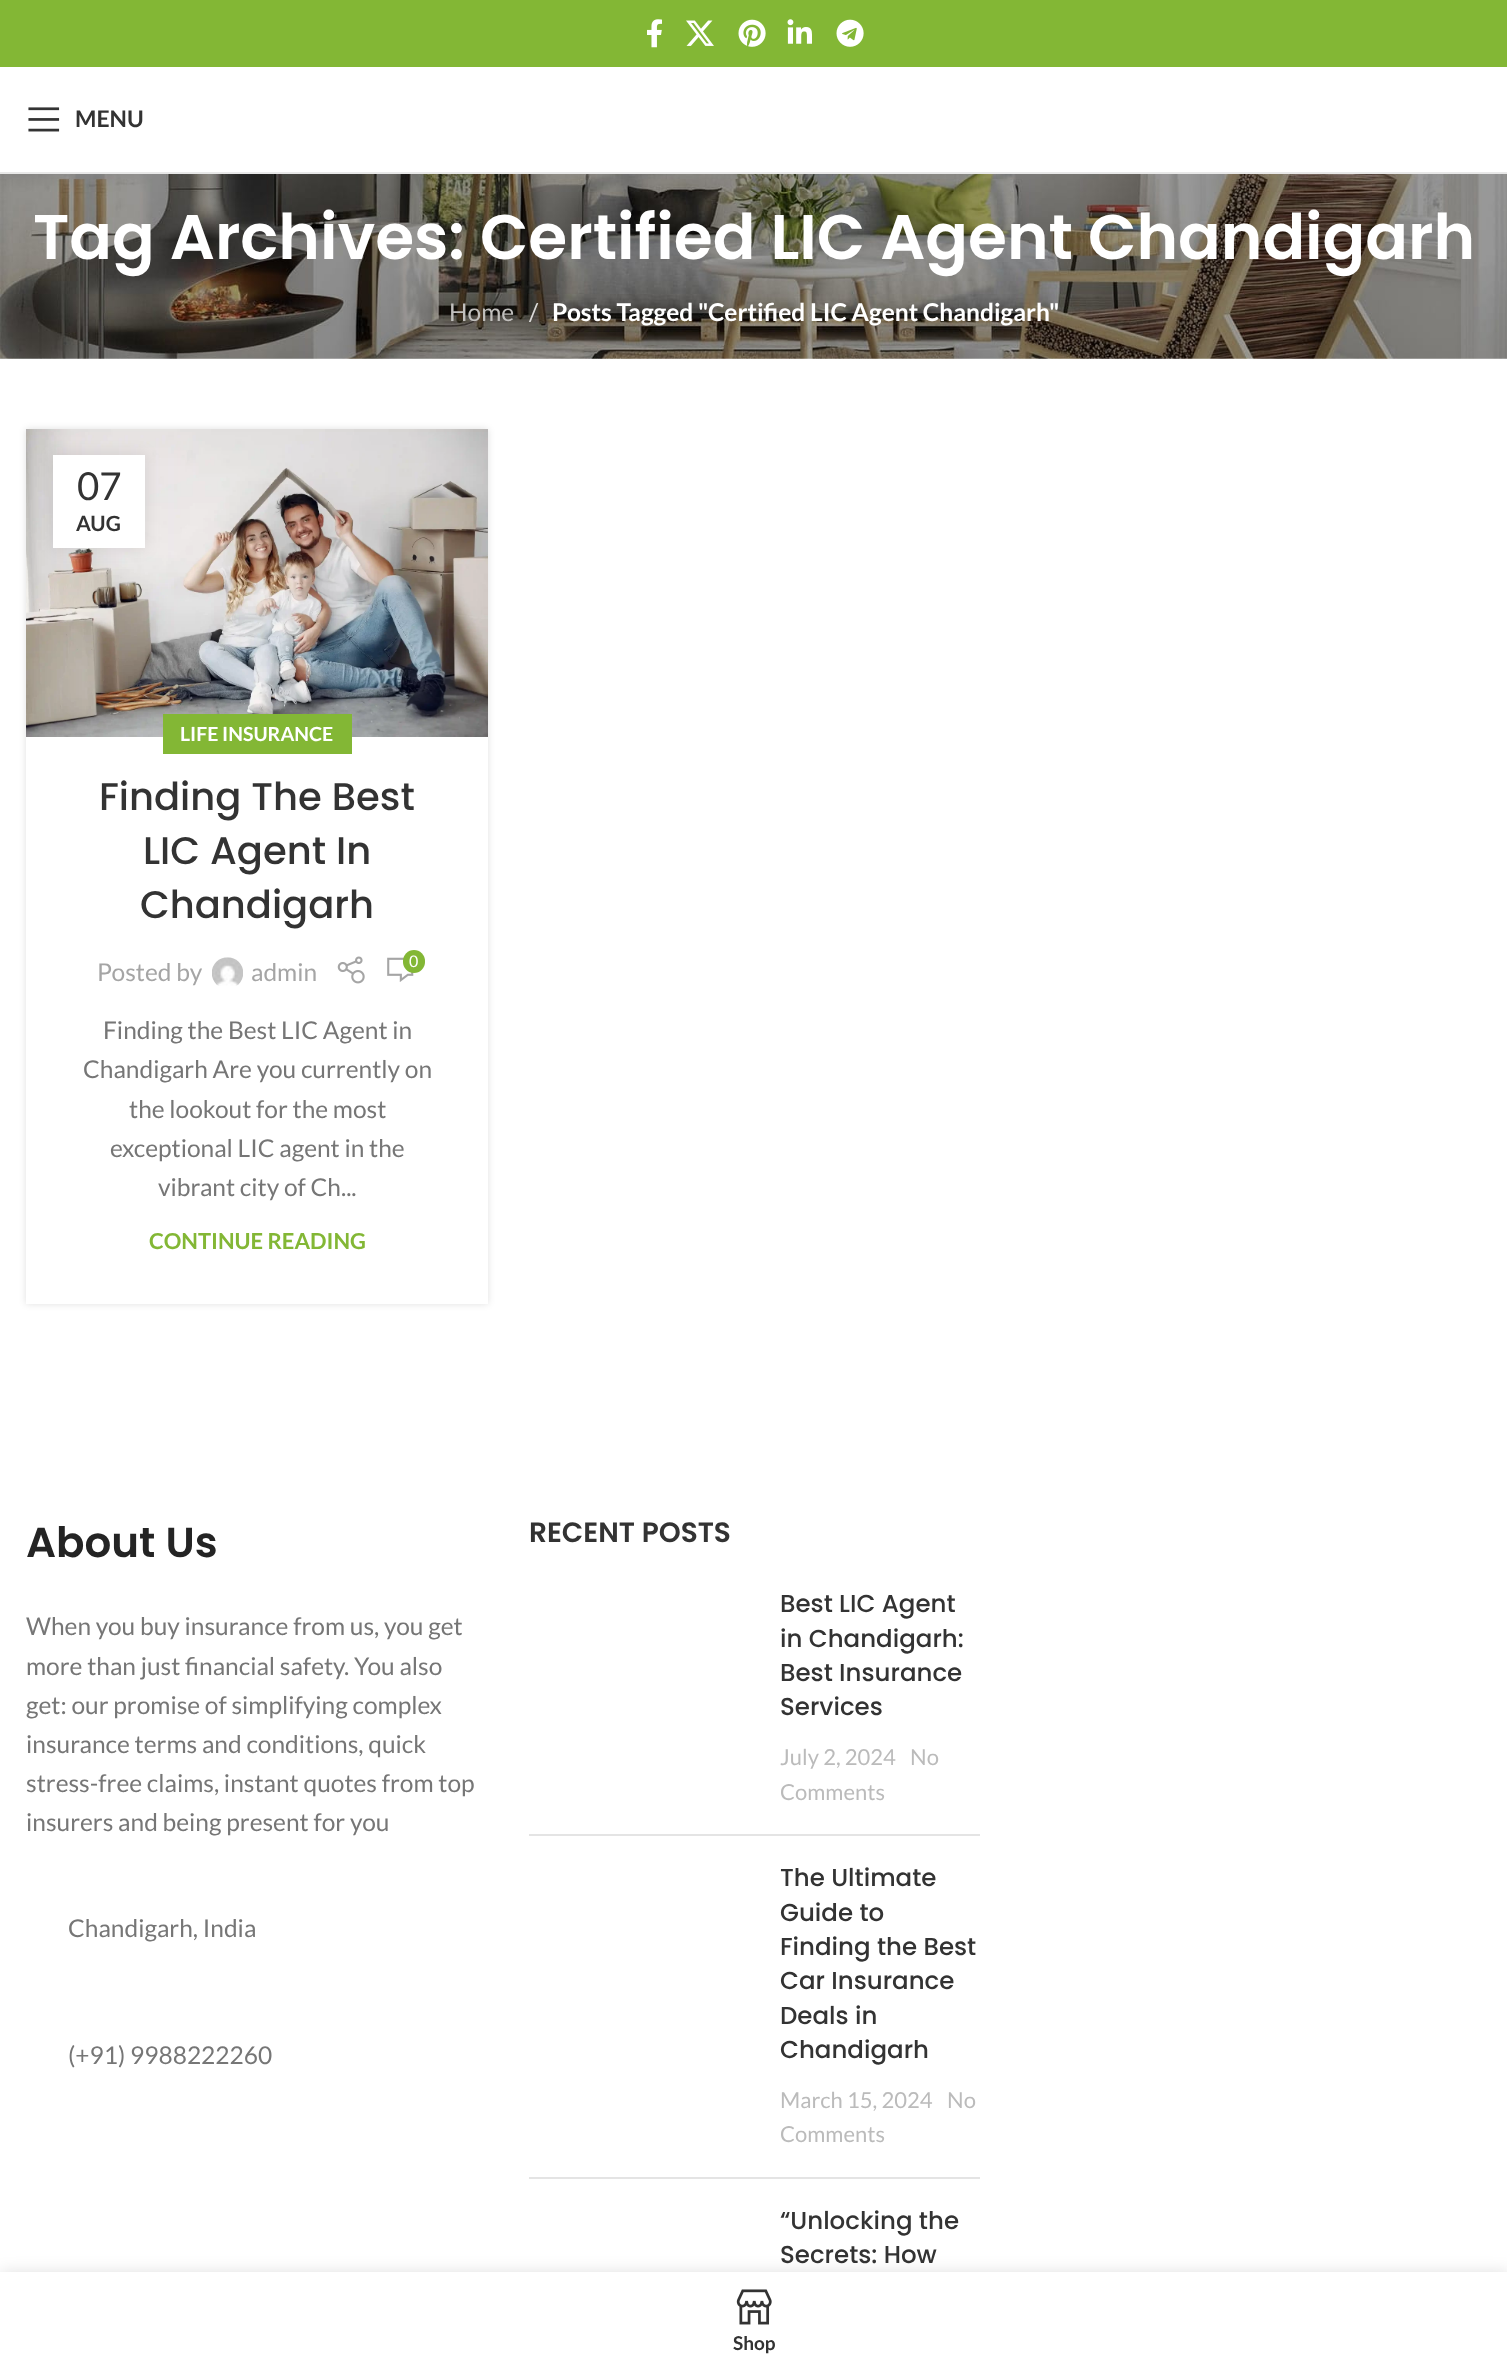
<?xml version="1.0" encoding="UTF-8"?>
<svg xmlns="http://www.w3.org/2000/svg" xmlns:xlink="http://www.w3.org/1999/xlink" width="1507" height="2367">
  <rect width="100%" height="100%" fill="#ffffff" />
  <rect width="1507" height="67" fill="#83b735" />
  <image x="647" y="19" width="15" height="29" xlink:href="image1.png" />
  <image x="686" y="20" width="28" height="26" xlink:href="image2.png" />
  <image x="738" y="19" width="28" height="28" xlink:href="image3.png" />
  <image x="787" y="19" width="25" height="25" xlink:href="image4.png" />
  <image x="836" y="19" width="28" height="28" xlink:href="image5.png" />
  <rect y="172" width="1507" height="2" fill="#e8e8e8" />
  <image x="28" y="107" width="32" height="25" xlink:href="image6.png" />
  <image x="0" y="174" width="1507" height="185" xlink:href="image7.png" />
  <rect x="26" y="429" width="462" height="875" fill="#000000" fill-opacity="0.12" filter="blur(3.5px)" />
  <image x="26" y="429" width="462" height="308" xlink:href="image8.png" />
  <rect x="53" y="455" width="92" height="93" fill="#000000" fill-opacity="0.1" filter="blur(8px)" />
  <rect x="53" y="455" width="92" height="93" fill="#ffffff" />
  <rect x="26" y="737" width="462" height="567" fill="#ffffff" />
  <rect x="163" y="714" width="189" height="40" fill="#83b735" />
  <image x="212" y="957" width="31" height="29" xlink:href="image9.png" />
  <image x="337" y="956" width="28" height="28" xlink:href="image10.png" />
  <image x="387" y="957" width="27" height="25" xlink:href="image11.png" />
  <rect x="403" y="950" width="22" height="23" rx="11" fill="#83b735" />
  <rect x="529" y="1834" width="451" height="2" fill="#e4e4e4" />
  <rect x="529" y="2177" width="451" height="2" fill="#e4e4e4" />
  <rect y="2272" width="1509" height="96" fill="#000000" fill-opacity="0.12" filter="blur(8px)" />
  <rect y="2272" width="1507" height="95" fill="#ffffff" />
  <image x="736" y="2289" width="36" height="36" xlink:href="image12.png" />
  <text x="75" y="127" style="font-family: Lato; font-size: 23px; font-weight: bold; fill: #333333">MENU</text>
  <text x="33" y="259" style="font-family: Poppins; font-size: 63px; font-weight: 600; fill: #ffffff">Tag Archives: Certified LIC Agent Chandigarh</text>
  <text x="449" y="321" style="font-family: Lato; font-size: 24.5px; fill: #c1bfbd">Home</text>
  <text x="529" y="321" style="font-family: Lato; font-size: 24.5px; fill: #dad9d8">/</text>
  <text x="552" y="321" style="font-family: Lato; font-size: 24.5px; font-weight: bold; fill: #ffffff">Posts Tagged "Certified LIC Agent Chandigarh"</text>
  <text x="77" y="500" style="font-family: Lato; font-size: 38.5px; fill: #333333">07</text>
  <text x="76" y="531" style="font-family: Lato; font-size: 21px; font-weight: bold; fill: #333333">AUG</text>
  <text x="180" y="741" style="font-family: Lato; font-size: 19.5px; font-weight: bold; fill: #ffffff">LIFE INSURANCE</text>
  <text x="99" y="810" style="font-family: Poppins; font-size: 38.5px; font-weight: 500; fill: #333333">Finding The Best</text>
  <text x="143" y="864" style="font-family: Poppins; font-size: 38.5px; font-weight: 500; fill: #333333">LIC Agent In</text>
  <text x="140" y="918" style="font-family: Poppins; font-size: 38.5px; font-weight: 500; fill: #333333">Chandigarh</text>
  <text x="97" y="981" style="font-family: Lato; font-size: 24.5px; fill: #a5a5a5">Posted by</text>
  <text x="251" y="981" style="font-family: Lato; font-size: 24.5px; fill: #a5a5a5">admin</text>
  <text x="409" y="967" style="font-family: Lato; font-size: 16px; fill: #ffffff">0</text>
  <text x="103" y="1039" style="font-family: Lato; font-size: 24.5px; fill: #767676">Finding the Best LIC Agent in</text>
  <text x="83" y="1078" style="font-family: Lato; font-size: 24.5px; fill: #767676">Chandigarh Are you currently on</text>
  <text x="129" y="1118" style="font-family: Lato; font-size: 24.5px; fill: #767676">the lookout for the most</text>
  <text x="110" y="1157" style="font-family: Lato; font-size: 24.5px; fill: #767676">exceptional LIC agent in the</text>
  <text x="158" y="1196" style="font-family: Lato; font-size: 24.5px; fill: #767676">vibrant city of Ch...</text>
  <text x="149" y="1249" style="font-family: Lato; font-size: 22px; font-weight: bold; fill: #83b735">CONTINUE READING</text>
  <text x="26" y="1557" style="font-family: Poppins; font-size: 42px; font-weight: 600; fill: #242424">About Us</text>
  <text x="26" y="1635" style="font-family: Lato; font-size: 24.5px; fill: #767676">When you buy insurance from us, you get</text>
  <text x="26" y="1675" style="font-family: Lato; font-size: 24.5px; fill: #767676">more than just financial safety. You also</text>
  <text x="26" y="1714" style="font-family: Lato; font-size: 24.5px; fill: #767676">get: our promise of simplifying complex</text>
  <text x="26" y="1753" style="font-family: Lato; font-size: 24.5px; fill: #767676">insurance terms and conditions, quick</text>
  <text x="26" y="1792" style="font-family: Lato; font-size: 24.5px; fill: #767676">stress-free claims, instant quotes from top</text>
  <text x="26" y="1831" style="font-family: Lato; font-size: 24.5px; fill: #767676">insurers and being present for you</text>
  <text x="68" y="1937" style="font-family: Lato; font-size: 24.5px; fill: #767676">Chandigarh, India</text>
  <text x="68" y="2064" style="font-family: Lato; font-size: 24.5px; fill: #767676">(+91) 9988222260</text>
  <text x="529" y="1542" style="font-family: Poppins; font-size: 28px; font-weight: 600; fill: #333333">RECENT POSTS</text>
  <text x="780" y="1612" style="font-family: Poppins; font-size: 24.5px; font-weight: 500; fill: #333333">Best LIC Agent</text>
  <text x="780" y="1647" style="font-family: Poppins; font-size: 24.5px; font-weight: 500; fill: #333333">in Chandigarh:</text>
  <text x="780" y="1681" style="font-family: Poppins; font-size: 24.5px; font-weight: 500; fill: #333333">Best Insurance</text>
  <text x="780" y="1715" style="font-family: Poppins; font-size: 24.5px; font-weight: 500; fill: #333333">Services</text>
  <text x="780" y="1765" style="font-family: Lato; font-size: 22px; fill: #bbbbbb">July 2, 2024</text>
  <text x="910" y="1765" style="font-family: Lato; font-size: 22px; fill: #bbbbbb">No</text>
  <text x="780" y="1800" style="font-family: Lato; font-size: 22px; fill: #bbbbbb">Comments</text>
  <text x="780" y="1886" style="font-family: Poppins; font-size: 24.5px; font-weight: 500; fill: #333333">The Ultimate</text>
  <text x="780" y="1921" style="font-family: Poppins; font-size: 24.5px; font-weight: 500; fill: #333333">Guide to</text>
  <text x="780" y="1955" style="font-family: Poppins; font-size: 24.5px; font-weight: 500; fill: #333333">Finding the Best</text>
  <text x="780" y="1989" style="font-family: Poppins; font-size: 24.5px; font-weight: 500; fill: #333333">Car Insurance</text>
  <text x="780" y="2024" style="font-family: Poppins; font-size: 24.5px; font-weight: 500; fill: #333333">Deals in</text>
  <text x="780" y="2058" style="font-family: Poppins; font-size: 24.5px; font-weight: 500; fill: #333333">Chandigarh</text>
  <text x="780" y="2108" style="font-family: Lato; font-size: 22px; fill: #bbbbbb">March 15, 2024</text>
  <text x="947" y="2108" style="font-family: Lato; font-size: 22px; fill: #bbbbbb">No</text>
  <text x="780" y="2142" style="font-family: Lato; font-size: 22px; fill: #bbbbbb">Comments</text>
  <text x="780" y="2229" style="font-family: Poppins; font-size: 24.5px; font-weight: 500; fill: #333333">“Unlocking the</text>
  <text x="780" y="2263" style="font-family: Poppins; font-size: 24.5px; font-weight: 500; fill: #333333">Secrets: How</text>
  <text x="733" y="2350" style="font-family: Lato; font-size: 19px; font-weight: bold; fill: #333333">Shop</text>
</svg>
